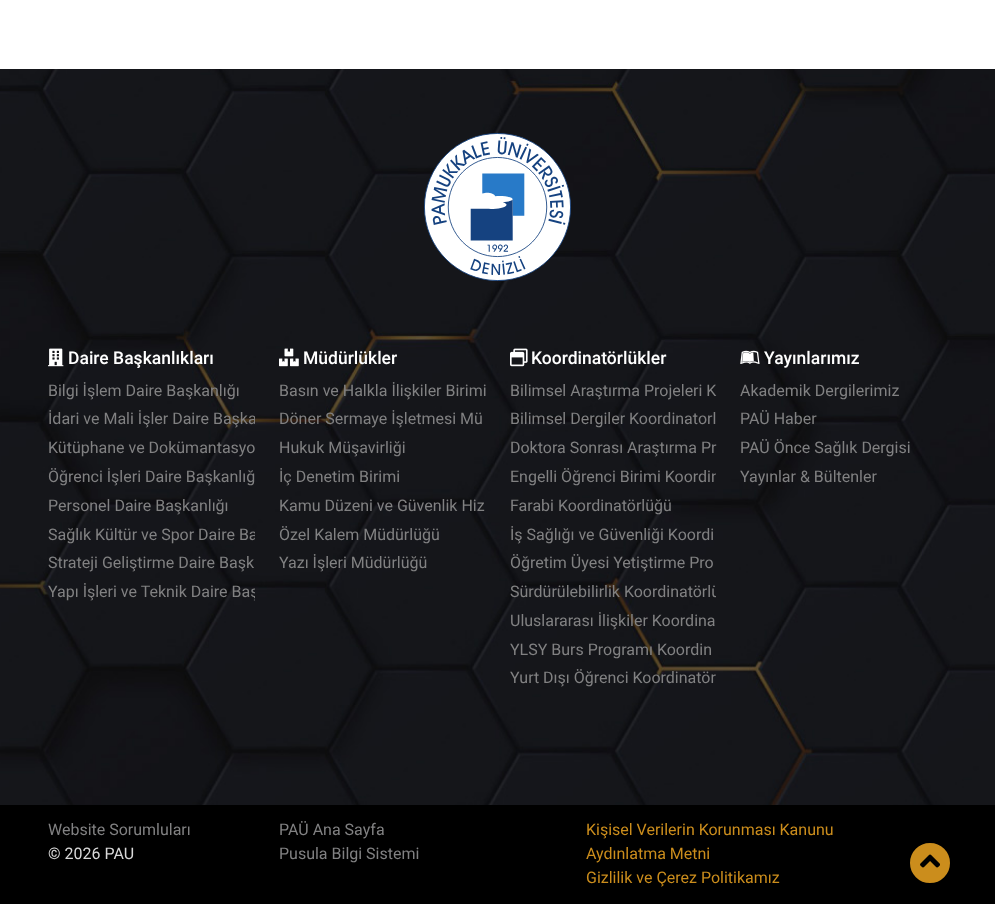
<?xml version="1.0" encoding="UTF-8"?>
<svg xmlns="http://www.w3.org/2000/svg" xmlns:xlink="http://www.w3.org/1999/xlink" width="995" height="904">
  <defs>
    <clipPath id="clip1"><rect x="48" y="405" width="207" height="29" /></clipPath>
    <clipPath id="clip2"><rect x="48" y="520" width="207" height="29" /></clipPath>
    <clipPath id="clip3"><rect x="48" y="578" width="207" height="29" /></clipPath>
    <clipPath id="clip4"><rect x="510" y="463" width="206" height="28" /></clipPath>
    <clipPath id="clip5"><rect x="510" y="578" width="206" height="29" /></clipPath>
  </defs>
  <rect width="100%" height="100%" fill="#ffffff" />
  <image x="0" y="69" width="995" height="736" xlink:href="image1.png" />
  <image x="424" y="133" width="147" height="148" xlink:href="image2.png" />
  <image x="48" y="348" width="16" height="19" xlink:href="image3.png" />
  <image x="279" y="348" width="20" height="19" xlink:href="image4.png" />
  <image x="510" y="348" width="18" height="19" xlink:href="image5.png" />
  <image x="740" y="350" width="20" height="14" xlink:href="image6.png" />
  <rect y="805" width="995" height="99" fill="#000000" />
  <circle cx="930" cy="863" r="22.5" fill="#cb8d1c" stroke="#000000" stroke-width="5" />
  <image x="920" y="854" width="20" height="14" xlink:href="image7.png" />
  <text x="68" y="364" style="font-family: Roboto; font-size: 17.5px; font-weight: 500; fill: #ffffff">Daire Başkanlıkları</text>
  <text x="48" y="396" style="font-family: Roboto; font-size: 16px; fill: #818182">Bilgi İşlem Daire Başkanlığı</text>
  <g clip-path="url(#clip1)">
    <text x="48" y="424" style="font-family: Roboto; font-size: 16px; fill: #818182">İdari ve Mali İşler Daire Başka</text>
  </g>
  <text x="48" y="453" style="font-family: Roboto; font-size: 16px; fill: #818182">Kütüphane ve Dokümantasyo</text>
  <text x="48" y="482" style="font-family: Roboto; font-size: 16px; fill: #818182">Öğrenci İşleri Daire Başkanlığ</text>
  <text x="48" y="511" style="font-family: Roboto; font-size: 16px; fill: #818182">Personel Daire Başkanlığı</text>
  <g clip-path="url(#clip2)">
    <text x="48" y="540" style="font-family: Roboto; font-size: 16px; fill: #818182">Sağlık Kültür ve Spor Daire Ba</text>
  </g>
  <text x="48" y="568" style="font-family: Roboto; font-size: 16px; fill: #818182">Strateji Geliştirme Daire Başk</text>
  <g clip-path="url(#clip3)">
    <text x="48" y="597" style="font-family: Roboto; font-size: 16px; fill: #818182">Yapı İşleri ve Teknik Daire Baş</text>
  </g>
  <text x="303" y="364" style="font-family: Roboto; font-size: 17.5px; font-weight: 500; fill: #ffffff">Müdürlükler</text>
  <text x="279" y="396" style="font-family: Roboto; font-size: 16px; fill: #818182">Basın ve Halkla İlişkiler Birimi</text>
  <text x="279" y="424" style="font-family: Roboto; font-size: 16px; fill: #818182">Döner Sermaye İşletmesi Mü</text>
  <text x="279" y="453" style="font-family: Roboto; font-size: 16px; fill: #818182">Hukuk Müşavirliği</text>
  <text x="279" y="482" style="font-family: Roboto; font-size: 16px; fill: #818182">İç Denetim Birimi</text>
  <text x="279" y="511" style="font-family: Roboto; font-size: 16px; fill: #818182">Kamu Düzeni ve Güvenlik Hiz</text>
  <text x="279" y="540" style="font-family: Roboto; font-size: 16px; fill: #818182">Özel Kalem Müdürlüğü</text>
  <text x="279" y="568" style="font-family: Roboto; font-size: 16px; fill: #818182">Yazı İşleri Müdürlüğü</text>
  <text x="531" y="364" style="font-family: Roboto; font-size: 17.5px; font-weight: 500; fill: #ffffff">Koordinatörlükler</text>
  <text x="510" y="396" style="font-family: Roboto; font-size: 16px; fill: #818182">Bilimsel Araştırma Projeleri K</text>
  <text x="510" y="424" style="font-family: Roboto; font-size: 16px; fill: #818182">Bilimsel Dergiler Koordinatorl</text>
  <text x="510" y="453" style="font-family: Roboto; font-size: 16px; fill: #818182">Doktora Sonrası Araştırma Pr</text>
  <g clip-path="url(#clip4)">
    <text x="510" y="482" style="font-family: Roboto; font-size: 16px; fill: #818182">Engelli Öğrenci Birimi Koordin</text>
  </g>
  <text x="510" y="511" style="font-family: Roboto; font-size: 16px; fill: #818182">Farabi Koordinatörlüğü</text>
  <text x="510" y="540" style="font-family: Roboto; font-size: 16px; fill: #818182">İş Sağlığı ve Güvenliği Koordi</text>
  <text x="510" y="568" style="font-family: Roboto; font-size: 16px; fill: #818182">Öğretim Üyesi Yetiştirme Pro</text>
  <g clip-path="url(#clip5)">
    <text x="510" y="597" style="font-family: Roboto; font-size: 16px; fill: #818182">Sürdürülebilirlik Koordinatörlü</text>
  </g>
  <text x="510" y="626" style="font-family: Roboto; font-size: 16px; fill: #818182">Uluslararası İlişkiler Koordina</text>
  <text x="510" y="655" style="font-family: Roboto; font-size: 16px; fill: #818182">YLSY Burs Programı Koordin</text>
  <text x="510" y="683" style="font-family: Roboto; font-size: 16px; fill: #818182">Yurt Dışı Öğrenci Koordinatör</text>
  <text x="764" y="364" style="font-family: Roboto; font-size: 17.5px; font-weight: 500; fill: #ffffff">Yayınlarımız</text>
  <text x="740" y="396" style="font-family: Roboto; font-size: 16px; fill: #818182">Akademik Dergilerimiz</text>
  <text x="740" y="424" style="font-family: Roboto; font-size: 16px; fill: #818182">PAÜ Haber</text>
  <text x="740" y="453" style="font-family: Roboto; font-size: 16px; fill: #818182">PAÜ Önce Sağlık Dergisi</text>
  <text x="740" y="482" style="font-family: Roboto; font-size: 16px; fill: #818182">Yayınlar &amp; Bültenler</text>
  <text x="48" y="835" style="font-family: Roboto; font-size: 16px; fill: #818182">Website Sorumluları</text>
  <text x="48" y="859" style="font-family: Roboto; font-size: 16px; fill: #d9d9d9">© 2026 PAU</text>
  <text x="279" y="835" style="font-family: Roboto; font-size: 16px; fill: #818182">PAÜ Ana Sayfa</text>
  <text x="279" y="859" style="font-family: Roboto; font-size: 16px; fill: #818182">Pusula Bilgi Sistemi</text>
  <text x="586" y="835" style="font-family: Roboto; font-size: 16px; fill: #cb8d1c">Kişisel Verilerin Korunması Kanunu</text>
  <text x="586" y="859" style="font-family: Roboto; font-size: 16px; fill: #cb8d1c">Aydınlatma Metni</text>
  <text x="586" y="883" style="font-family: Roboto; font-size: 16px; fill: #cb8d1c">Gizlilik ve Çerez Politikamız</text>
</svg>
